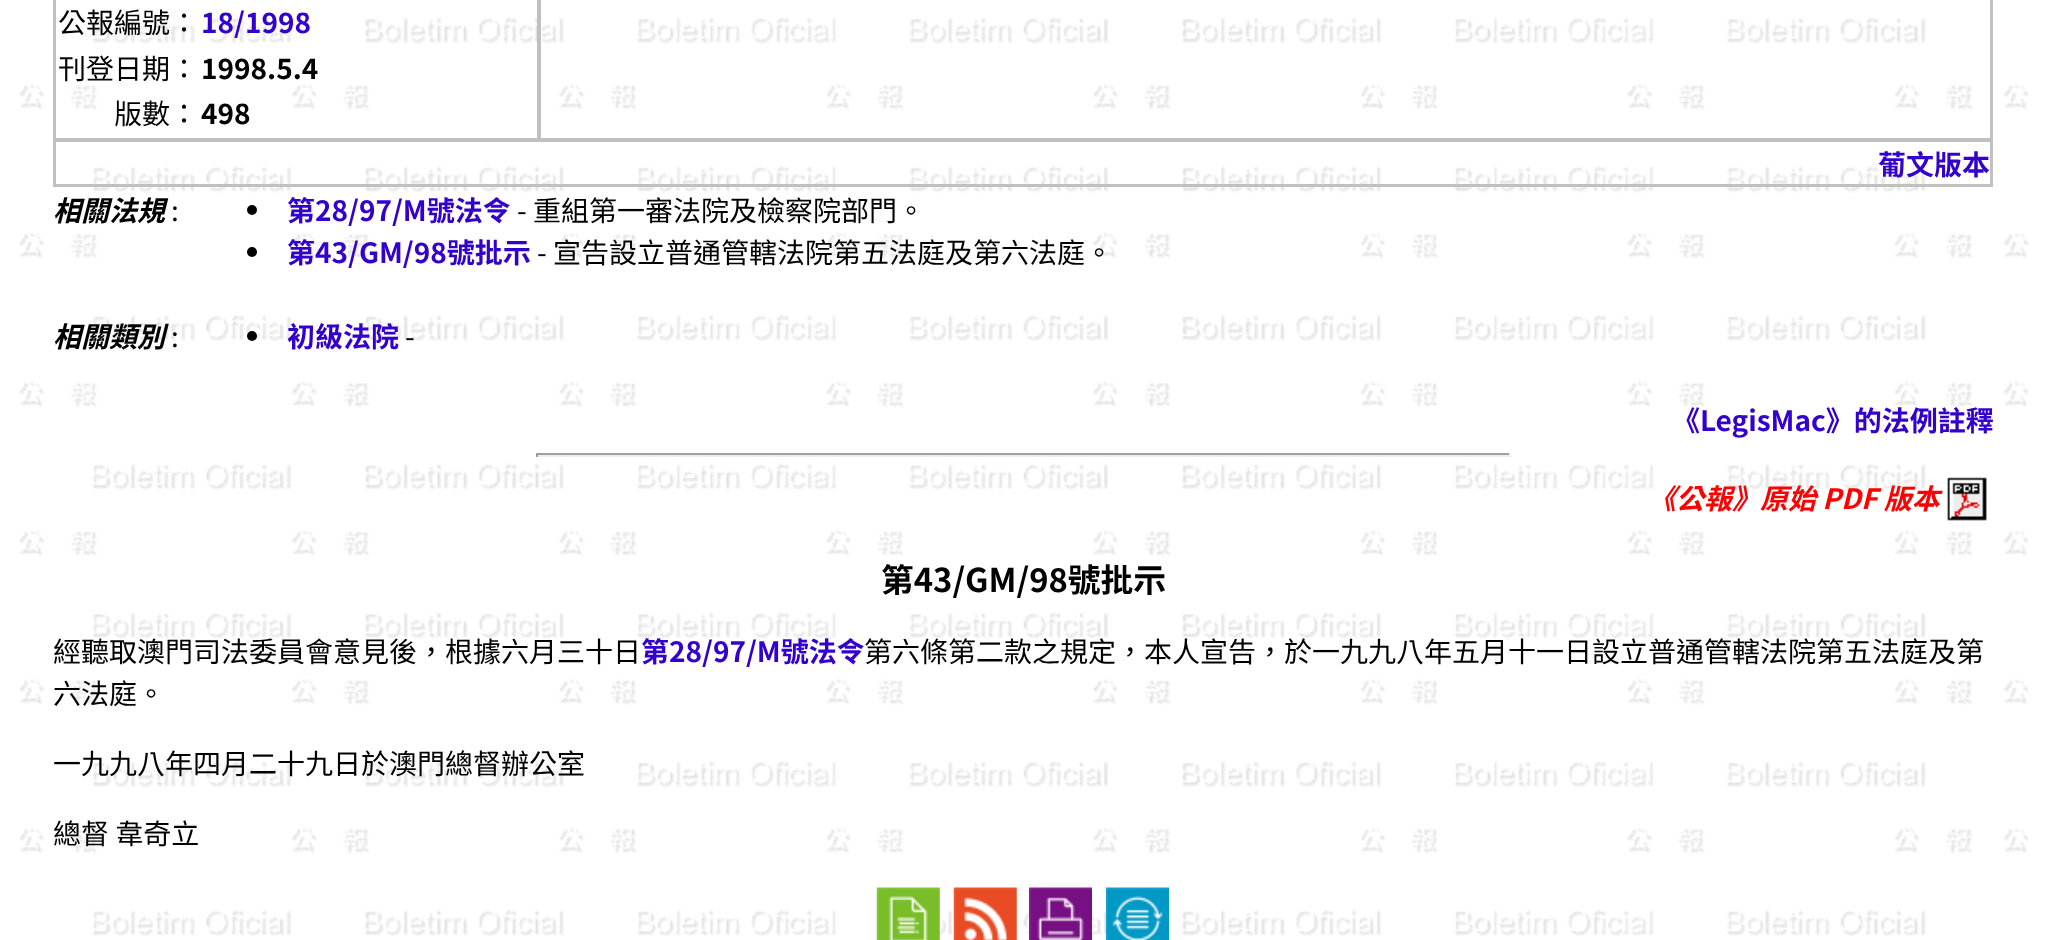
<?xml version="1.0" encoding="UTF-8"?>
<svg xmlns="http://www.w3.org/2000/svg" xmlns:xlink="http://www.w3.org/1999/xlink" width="2045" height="940">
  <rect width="100%" height="100%" fill="#ffffff" />
  <image x="19" y="17" width="2010" height="919" xlink:href="image1.png" />
  <rect x="54" y="-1" width="1938" height="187" fill="none" stroke="#c0c0c0" stroke-width="2" />
  <rect x="55" y="-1" width="483" height="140" fill="none" stroke="#c0c0c0" stroke-width="2" />
  <rect x="540" y="-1" width="1451" height="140" fill="none" stroke="#c0c0c0" stroke-width="2" />
  <rect x="55" y="141" width="1936" height="44" fill="none" stroke="#c0c0c0" stroke-width="2" />
  <circle cx="252" cy="210" r="5" fill="#000000" />
  <circle cx="252" cy="252" r="5" fill="#000000" />
  <circle cx="252" cy="336" r="5" fill="#000000" />
  <rect x="536" y="453" width="974" height="2" fill="#9f9f9f" />
  <rect x="1509" y="453" width="2" height="4" fill="#eeeeee" />
  <rect x="536" y="455" width="974" height="2" fill="#eeeeee" />
  <rect x="536" y="453" width="2" height="4" fill="#9f9f9f" />
  <image x="1947" y="477" width="40" height="44" xlink:href="image2.png" />
  <image x="876" y="887" width="64" height="53" xlink:href="image3.png" />
  <image x="953" y="887" width="64" height="53" xlink:href="image4.png" />
  <image x="1029" y="887" width="63" height="53" xlink:href="image5.png" />
  <image x="1106" y="887" width="63" height="53" xlink:href="image6.png" />
  <text x="58" y="33" style="font-family: Noto Sans TC; font-size: 28px; fill: #000000">公報編號：</text>
  <text x="201" y="33" style="font-family: Noto Sans TC; font-size: 28px; font-weight: bold; fill: #3300cc">18/1998</text>
  <text x="58" y="79" style="font-family: Noto Sans TC; font-size: 28px; fill: #000000">刊登日期：</text>
  <text x="201" y="79" style="font-family: Noto Sans TC; font-size: 28px; font-weight: bold; fill: #000000">1998.5.4</text>
  <text x="114" y="124" style="font-family: Noto Sans TC; font-size: 28px; fill: #000000">版數：</text>
  <text x="201" y="124" style="font-family: Noto Sans TC; font-size: 28px; font-weight: bold; fill: #000000">498</text>
  <text x="1878" y="175" style="font-family: Noto Sans TC; font-size: 28px; font-weight: bold; fill: #3300cc">葡文版本</text>
  <text x="53" y="221" style="font-family: Noto Sans TC; font-size: 28px; font-weight: bold; font-style: italic; fill: #000000">相關法規</text>
  <text x="171" y="221" style="font-family: Noto Sans TC; font-size: 28px; fill: #000000">:</text>
  <text x="287" y="221" style="font-family: Noto Sans TC; font-size: 28px; font-weight: bold; fill: #3300cc">第28/97/M號法令</text>
  <text x="517" y="221" style="font-family: Noto Sans TC; font-size: 28px; fill: #000000">- 重組第一審法院及檢察院部門。</text>
  <text x="287" y="263" style="font-family: Noto Sans TC; font-size: 28px; font-weight: bold; fill: #3300cc">第43/GM/98號批示</text>
  <text x="537" y="263" style="font-family: Noto Sans TC; font-size: 28px; fill: #000000">- 宣告設立普通管轄法院第五法庭及第六法庭。</text>
  <text x="53" y="347" style="font-family: Noto Sans TC; font-size: 28px; font-weight: bold; font-style: italic; fill: #000000">相關類別</text>
  <text x="171" y="347" style="font-family: Noto Sans TC; font-size: 28px; fill: #000000">:</text>
  <text x="287" y="347" style="font-family: Noto Sans TC; font-size: 28px; font-weight: bold; fill: #3300cc">初級法院</text>
  <text x="405" y="347" style="font-family: Noto Sans TC; font-size: 28px; fill: #000000">-</text>
  <text x="1672" y="431" style="font-family: Noto Sans TC; font-size: 28px; font-weight: bold; fill: #3300cc">《LegisMac》的法例註釋</text>
  <text x="1648" y="509" style="font-family: Noto Sans TC; font-size: 28px; font-weight: bold; font-style: italic; fill: #ff0000">《公報》原始 PDF 版本</text>
  <text x="881" y="592" style="font-family: Noto Sans TC; font-size: 32.75px; font-weight: bold; fill: #000000">第43/GM/98號批示</text>
  <text x="53" y="662" style="font-family: Noto Sans TC; font-size: 28px; fill: #000000">經聽取澳門司法委員會意見後，根據六月三十日</text>
  <text x="641" y="662" style="font-family: Noto Sans TC; font-size: 28px; font-weight: bold; fill: #3300cc">第28/97/M號法令</text>
  <text x="864" y="662" style="font-family: Noto Sans TC; font-size: 28px; fill: #000000">第六條第二款之規定，本人宣告，於一九九八年五月十一日設立普通管轄法院第五法庭及第</text>
  <text x="53" y="704" style="font-family: Noto Sans TC; font-size: 28px; fill: #000000">六法庭。</text>
  <text x="53" y="774" style="font-family: Noto Sans TC; font-size: 28px; fill: #000000">一九九八年四月二十九日於澳門總督辦公室</text>
  <text x="53" y="844" style="font-family: Noto Sans TC; font-size: 28px; fill: #000000">總督 韋奇立</text>
</svg>
